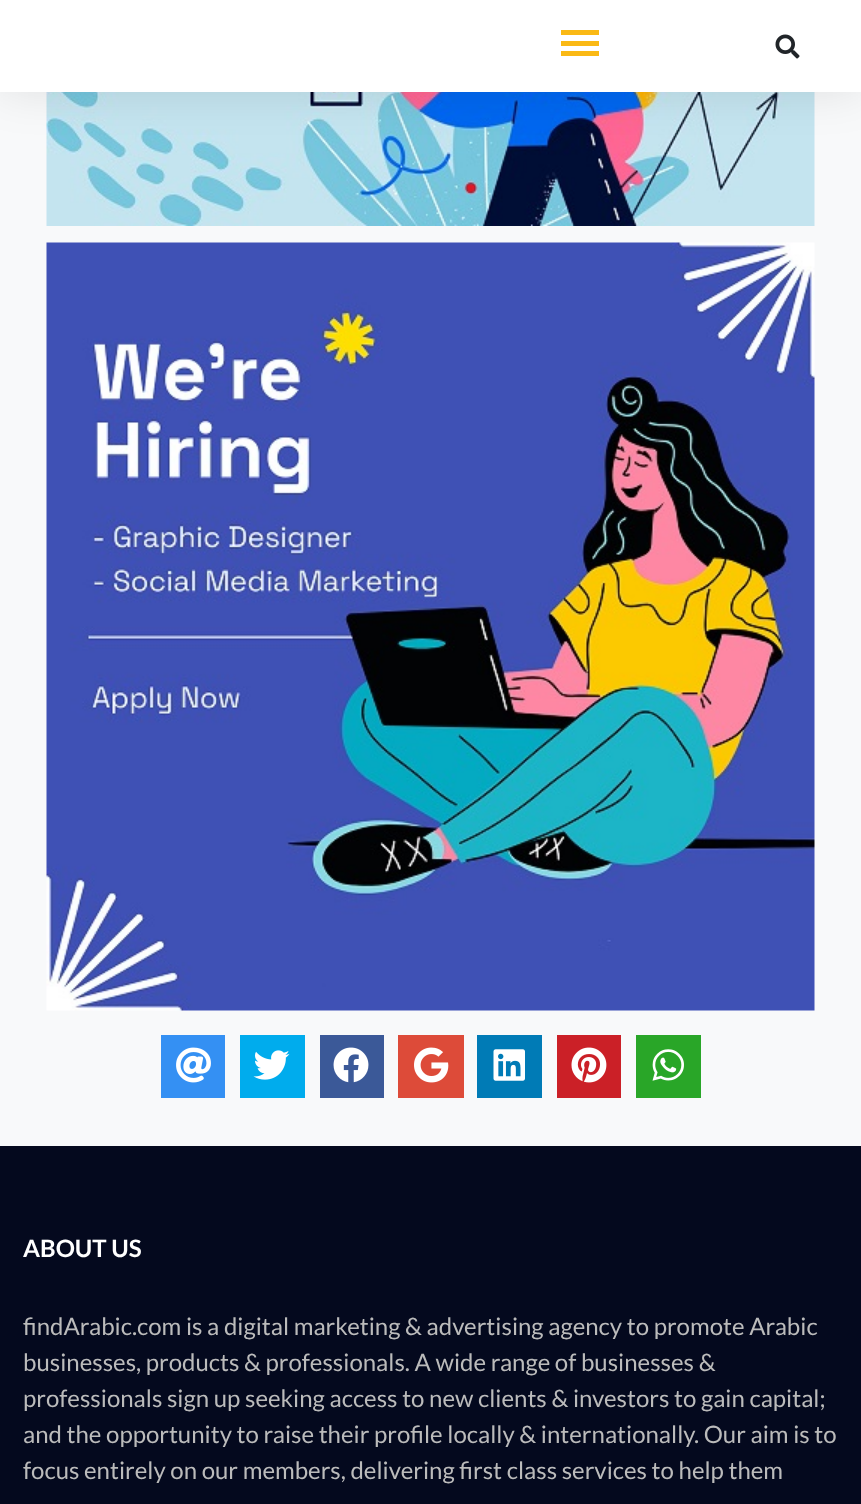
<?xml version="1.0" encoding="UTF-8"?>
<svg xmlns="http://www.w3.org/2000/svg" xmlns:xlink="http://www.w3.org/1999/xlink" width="861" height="1504">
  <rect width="100%" height="100%" fill="#f8f9fa" />
  <image x="46" y="92" width="769" height="134" xlink:href="image2.png" />
  <rect width="861" height="92" fill="#000000" fill-opacity="0.1" filter="blur(22.5px)" />
  <rect width="861" height="92" fill="#ffffff" />
  <rect x="561" y="30" width="38" height="5" fill="#fab915" />
  <rect x="561" y="41" width="38" height="5" fill="#fab915" />
  <rect x="561" y="51" width="38" height="5" fill="#fab915" />
  <image x="775" y="34" width="25" height="25" xlink:href="image1.png" />
  <image x="46" y="242" width="769" height="769" xlink:href="image3.png" />
  <rect x="161" y="1035" width="64" height="63" fill="#3490f3" />
  <image x="176" y="1047" width="35" height="36" xlink:href="image4.png" />
  <rect x="240" y="1035" width="65" height="63" fill="#00aced" />
  <image x="253" y="1050" width="37" height="30" xlink:href="image5.png" />
  <rect x="320" y="1035" width="64" height="63" fill="#3b5998" />
  <image x="333" y="1047" width="36" height="36" xlink:href="image6.png" />
  <rect x="398" y="1035" width="66" height="63" fill="#dd4b39" />
  <image x="414" y="1047" width="35" height="36" xlink:href="image7.png" />
  <rect x="477" y="1035" width="65" height="63" fill="#007bb6" />
  <image x="493" y="1049" width="32" height="32" xlink:href="image8.png" />
  <rect x="557" y="1035" width="64" height="63" fill="#cb2027" />
  <image x="571" y="1047" width="36" height="36" xlink:href="image9.png" />
  <rect x="636" y="1035" width="65" height="63" fill="#29a628" />
  <image x="652" y="1049" width="32" height="32" xlink:href="image10.png" />
  <rect y="1146" width="861" height="358" fill="#04091e" />
  <text x="23" y="1257" style="font-family: Lato; font-size: 24px; font-weight: bold; fill: #ffffff">ABOUT US</text>
  <text x="23" y="1335" style="font-family: Lato; font-size: 24px; fill: #bbbbbb">findArabic.com is a digital marketing &amp; advertising agency to promote Arabic</text>
  <text x="23" y="1371" style="font-family: Lato; font-size: 24px; fill: #bbbbbb">businesses, products &amp; professionals. A wide range of businesses &amp;</text>
  <text x="23" y="1407" style="font-family: Lato; font-size: 24px; fill: #bbbbbb">professionals sign up seeking access to new clients &amp; investors to gain capital;</text>
  <text x="23" y="1443" style="font-family: Lato; font-size: 24px; fill: #bbbbbb">and the opportunity to raise their profile locally &amp; internationally. Our aim is to</text>
  <text x="23" y="1479" style="font-family: Lato; font-size: 24px; fill: #bbbbbb">focus entirely on our members, delivering first class services to help them</text>
</svg>
